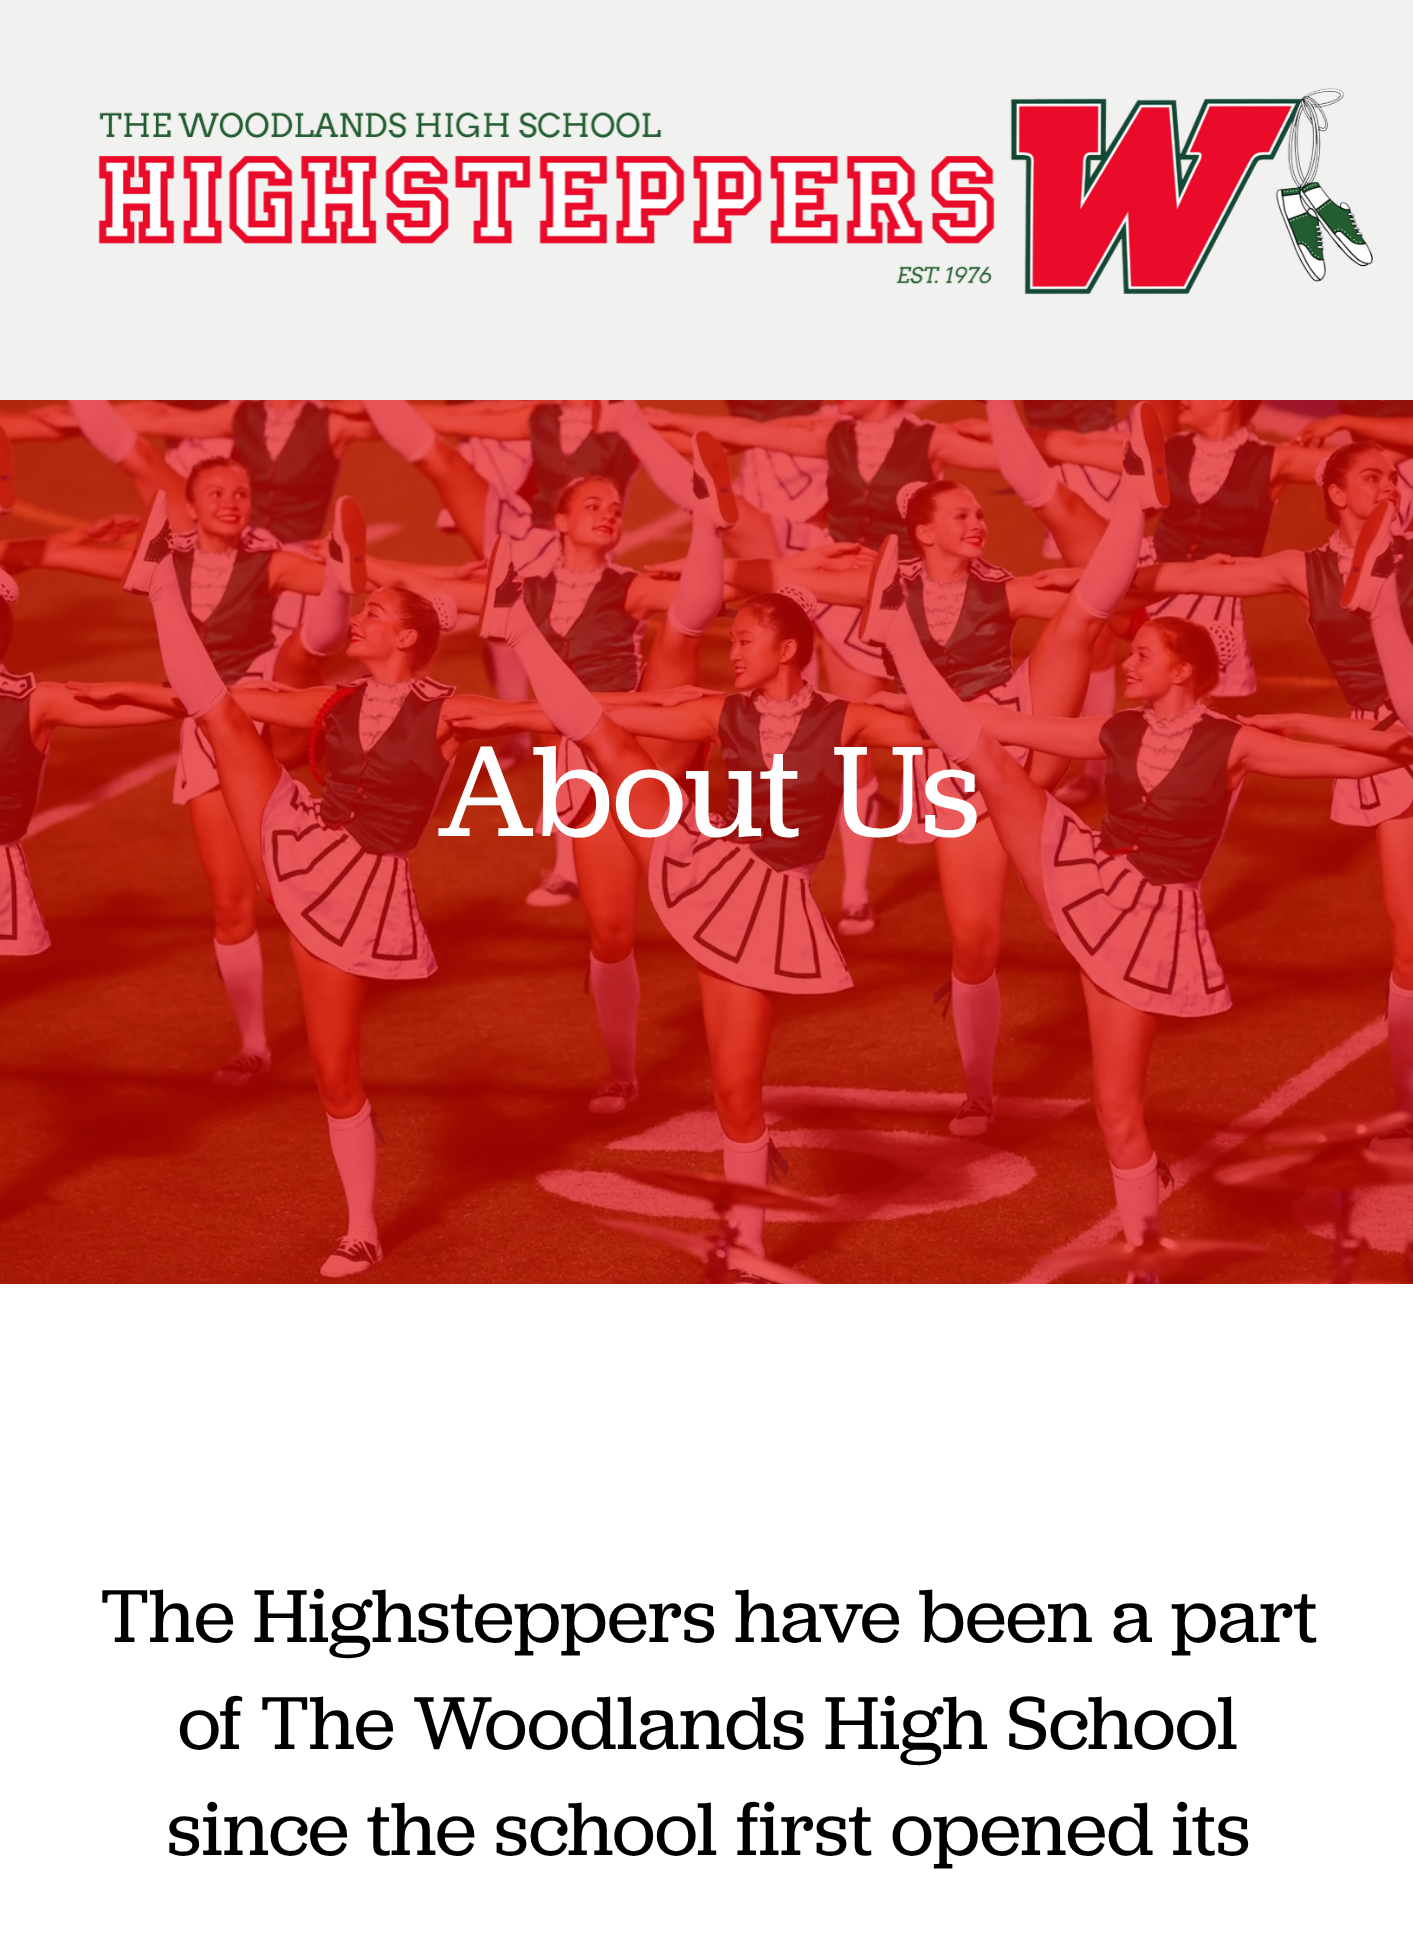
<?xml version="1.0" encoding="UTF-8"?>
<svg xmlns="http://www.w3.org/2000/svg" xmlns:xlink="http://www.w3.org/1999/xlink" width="1413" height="1944">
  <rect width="100%" height="100%" fill="#ffffff" />
  <rect width="1413" height="400" fill="#f1f1ef" />
  <image x="98" y="88" width="1275" height="207" xlink:href="image1.png" />
  <image x="0" y="400" width="1413" height="884" xlink:href="image2.png" />
  <text x="437" y="836" style="font-family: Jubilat; font-size: 134px; fill: #ffffff">About Us</text>
  <text x="100" y="1642" style="font-family: Jubilat; font-size: 78px; fill: #000000">The Highsteppers have been a part</text>
  <text x="178" y="1749" style="font-family: Jubilat; font-size: 78px; fill: #000000">of The Woodlands High School</text>
  <text x="167" y="1855" style="font-family: Jubilat; font-size: 78px; fill: #000000">since the school first opened its</text>
</svg>
